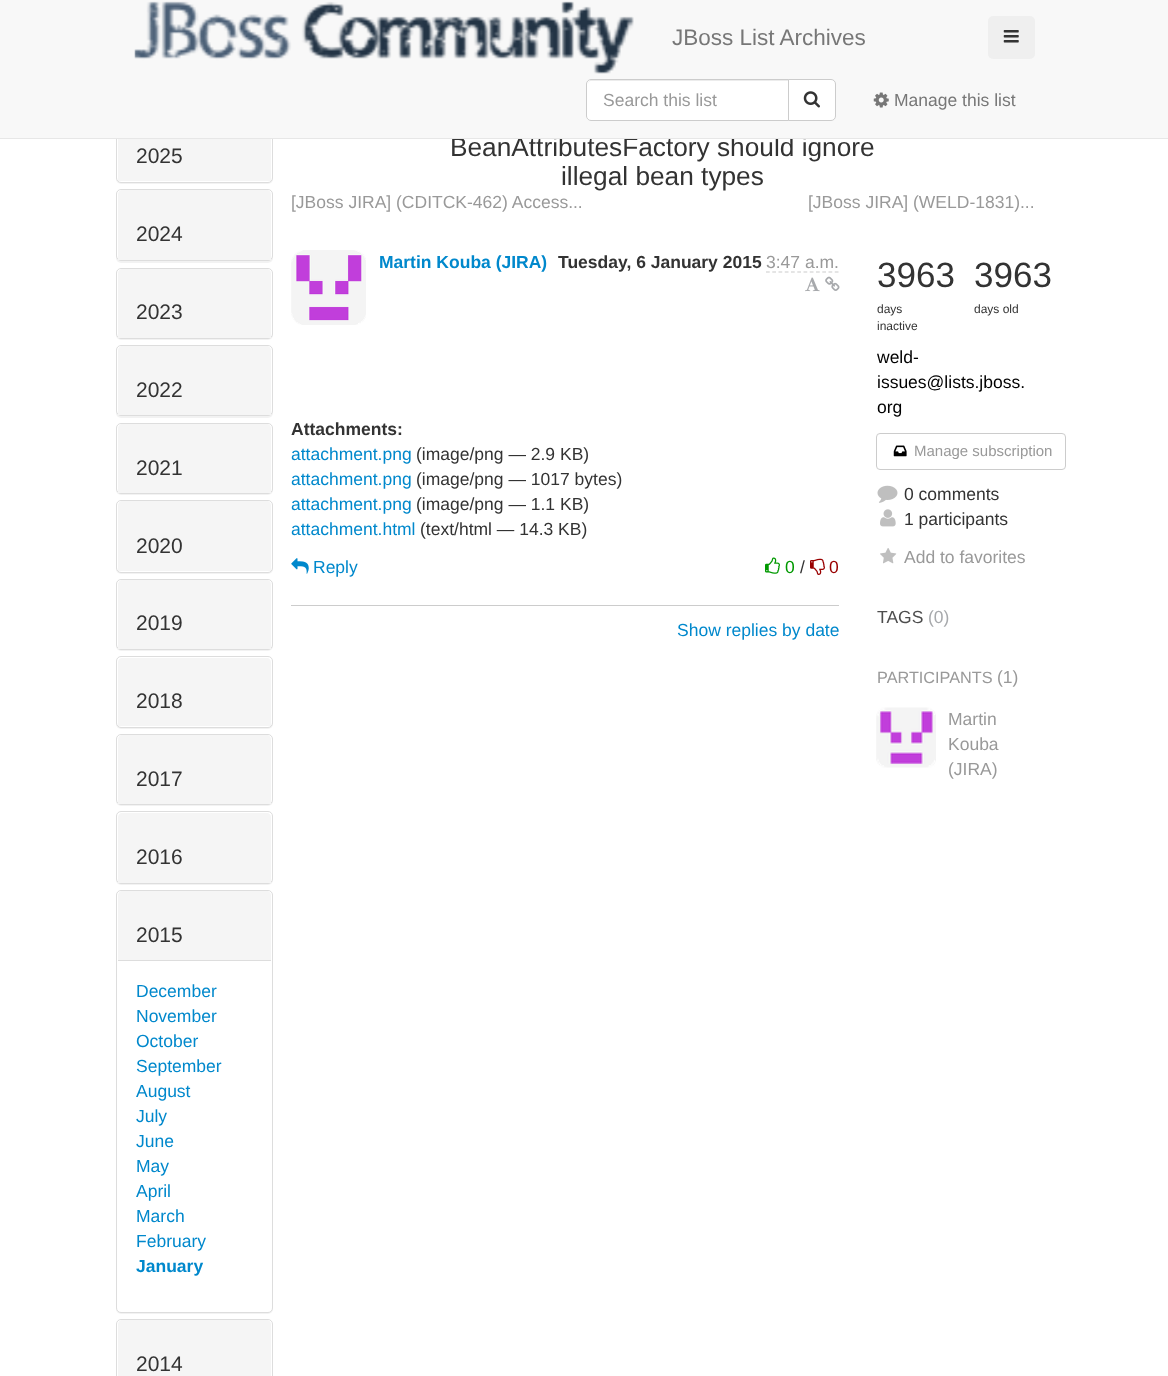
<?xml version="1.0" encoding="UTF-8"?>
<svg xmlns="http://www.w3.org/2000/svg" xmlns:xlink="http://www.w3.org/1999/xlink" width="1168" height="1376">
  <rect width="100%" height="100%" fill="#ffffff" />
  <rect x="116" y="113" width="157" height="71" rx="5" fill="#000000" fill-opacity="0.05" filter="blur(0.5px)" />
  <rect x="116.5" y="111.5" width="156" height="71" rx="4.5" fill="#ffffff" stroke="#dddddd" />
  <rect x="118" y="139" width="153" height="42" fill="#f5f5f5" />
  <rect x="116" y="190" width="157" height="73" rx="5" fill="#000000" fill-opacity="0.05" filter="blur(0.5px)" />
  <rect x="116.5" y="189.5" width="156" height="71" rx="4.5" fill="#ffffff" stroke="#dddddd" />
  <path d="M 122 190 h 145 c 2 0 4 2 4 4 v 66 h -153 v -66 c 0 -2 2 -4 4 -4 z" fill="#f5f5f5" />
  <rect x="116" y="269" width="157" height="71" rx="5" fill="#000000" fill-opacity="0.05" filter="blur(0.5px)" />
  <rect x="116.5" y="268.5" width="156" height="70" rx="4.5" fill="#ffffff" stroke="#dddddd" />
  <path d="M 122 269 h 145 c 2 0 4 2 4 4 v 65 h -153 v -65 c 0 -2 2 -4 4 -4 z" fill="#f5f5f5" />
  <rect x="116" y="346" width="157" height="72" rx="5" fill="#000000" fill-opacity="0.05" filter="blur(0.5px)" />
  <rect x="116.5" y="345.5" width="156" height="70" rx="4.5" fill="#ffffff" stroke="#dddddd" />
  <path d="M 122 346 h 145 c 2 0 4 2 4 4 v 65 h -153 v -65 c 0 -2 2 -4 4 -4 z" fill="#f5f5f5" />
  <rect x="116" y="424" width="157" height="71" rx="5" fill="#000000" fill-opacity="0.05" filter="blur(0.5px)" />
  <rect x="116.5" y="423.5" width="156" height="70" rx="4.5" fill="#ffffff" stroke="#dddddd" />
  <path d="M 122 424 h 145 c 2 0 4 2 4 4 v 65 h -153 v -65 c 0 -2 2 -4 4 -4 z" fill="#f5f5f5" />
  <rect x="116" y="501" width="157" height="73" rx="5" fill="#000000" fill-opacity="0.05" filter="blur(0.5px)" />
  <rect x="116.5" y="500.5" width="156" height="72" rx="4.5" fill="#ffffff" stroke="#dddddd" />
  <path d="M 122 501 h 145 c 2 0 4 2 4 4 v 66 h -153 v -66 c 0 -2 2 -4 4 -4 z" fill="#f5f5f5" />
  <rect x="116" y="580" width="157" height="71" rx="5" fill="#000000" fill-opacity="0.05" filter="blur(0.5px)" />
  <rect x="116.5" y="579.5" width="156" height="70" rx="4.5" fill="#ffffff" stroke="#dddddd" />
  <path d="M 122 580 h 145 c 2 0 4 2 4 4 v 65 h -153 v -65 c 0 -2 2 -4 4 -4 z" fill="#f5f5f5" />
  <rect x="116" y="658" width="157" height="71" rx="5" fill="#000000" fill-opacity="0.05" filter="blur(0.5px)" />
  <rect x="116.5" y="656.5" width="156" height="71" rx="4.5" fill="#ffffff" stroke="#dddddd" />
  <path d="M 122 658 h 145 c 2 0 4 2 4 4 v 64 h -153 v -64 c 0 -2 2 -4 4 -4 z" fill="#f5f5f5" />
  <rect x="116" y="735" width="157" height="71" rx="5" fill="#000000" fill-opacity="0.05" filter="blur(0.5px)" />
  <rect x="116.5" y="734.5" width="156" height="70" rx="4.5" fill="#ffffff" stroke="#dddddd" />
  <path d="M 122 735 h 145 c 2 0 4 2 4 4 v 65 h -153 v -65 c 0 -2 2 -4 4 -4 z" fill="#f5f5f5" />
  <rect x="116" y="813" width="157" height="72" rx="5" fill="#000000" fill-opacity="0.05" filter="blur(0.5px)" />
  <rect x="116.5" y="811.5" width="156" height="72" rx="4.5" fill="#ffffff" stroke="#dddddd" />
  <path d="M 122 813 h 145 c 2 0 4 2 4 4 v 66 h -153 v -66 c 0 -2 2 -4 4 -4 z" fill="#f5f5f5" />
  <rect x="116" y="891" width="157" height="423" rx="5" fill="#000000" fill-opacity="0.05" filter="blur(0.5px)" />
  <rect x="116.5" y="890.5" width="156" height="422" rx="4.5" fill="#ffffff" stroke="#dddddd" />
  <path d="M 122 891 h 145 c 2 0 4 2 4 4 v 65 h -153 v -65 c 0 -2 2 -4 4 -4 z" fill="#f5f5f5" />
  <rect x="118" y="960" width="153" height="1" fill="#dddddd" />
  <rect x="116.5" y="1319.5" width="156" height="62" rx="4.5" fill="none" stroke="#dddddd" />
  <path d="M 122 1320 h 145 c 2 0 4 2 4 4 v 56 h -153 v -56 c 0 -2 2 -4 4 -4 z" fill="#f5f5f5" />
  <image x="291" y="250" width="75" height="75" xlink:href="image5.png" />
  <path d="M 766 272 h 73" fill="none" stroke="#cccccc" stroke-width="1.2" stroke-dasharray="3.75 2.5" />
  <image x="805" y="277" width="15" height="15" xlink:href="image6.png" />
  <image x="825" y="276" width="15" height="15" xlink:href="image7.png" />
  <rect x="291" y="605" width="548" height="1" fill="#cccccc" />
  <image x="291" y="558" width="18" height="16" xlink:href="image8.png" />
  <image x="765" y="557" width="15" height="17" xlink:href="image9.png" />
  <image x="810" y="558" width="15" height="17" xlink:href="image10.png" />
  <rect x="876.5" y="433.5" width="189" height="36" rx="3.5" fill="none" stroke="#cccccc" />
  <image x="893" y="445" width="14" height="12" xlink:href="image11.png" />
  <image x="877" y="485" width="21" height="18" xlink:href="image12.png" />
  <image x="880" y="509" width="16" height="18" xlink:href="image13.png" />
  <image x="880" y="548" width="17" height="16" xlink:href="image14.png" />
  <image x="876" y="707" width="60" height="61" xlink:href="image15.png" />
  <text x="136" y="163" style="font-family: Liberation Sans; font-size: 21px; fill: #333333">2025</text>
  <text x="136" y="241" style="font-family: Liberation Sans; font-size: 21px; fill: #333333">2024</text>
  <text x="136" y="319" style="font-family: Liberation Sans; font-size: 21px; fill: #333333">2023</text>
  <text x="136" y="397" style="font-family: Liberation Sans; font-size: 21px; fill: #333333">2022</text>
  <text x="136" y="475" style="font-family: Liberation Sans; font-size: 21px; fill: #333333">2021</text>
  <text x="136" y="553" style="font-family: Liberation Sans; font-size: 21px; fill: #333333">2020</text>
  <text x="136" y="630" style="font-family: Liberation Sans; font-size: 21px; fill: #333333">2019</text>
  <text x="136" y="708" style="font-family: Liberation Sans; font-size: 21px; fill: #333333">2018</text>
  <text x="136" y="786" style="font-family: Liberation Sans; font-size: 21px; fill: #333333">2017</text>
  <text x="136" y="864" style="font-family: Liberation Sans; font-size: 21px; fill: #333333">2016</text>
  <text x="136" y="942" style="font-family: Liberation Sans; font-size: 21px; fill: #333333">2015</text>
  <text x="136" y="997" style="font-family: Liberation Sans; font-size: 17.5px; fill: #0088cc">December</text>
  <text x="136" y="1022" style="font-family: Liberation Sans; font-size: 17.5px; fill: #0088cc">November</text>
  <text x="136" y="1047" style="font-family: Liberation Sans; font-size: 17.5px; fill: #0088cc">October</text>
  <text x="136" y="1072" style="font-family: Liberation Sans; font-size: 17.5px; fill: #0088cc">September</text>
  <text x="136" y="1097" style="font-family: Liberation Sans; font-size: 17.5px; fill: #0088cc">August</text>
  <text x="136" y="1122" style="font-family: Liberation Sans; font-size: 17.5px; fill: #0088cc">July</text>
  <text x="136" y="1147" style="font-family: Liberation Sans; font-size: 17.5px; fill: #0088cc">June</text>
  <text x="136" y="1172" style="font-family: Liberation Sans; font-size: 17.5px; fill: #0088cc">May</text>
  <text x="136" y="1197" style="font-family: Liberation Sans; font-size: 17.5px; fill: #0088cc">April</text>
  <text x="136" y="1222" style="font-family: Liberation Sans; font-size: 17.5px; fill: #0088cc">March</text>
  <text x="136" y="1247" style="font-family: Liberation Sans; font-size: 17.5px; fill: #0088cc">February</text>
  <text x="136" y="1272" style="font-family: Liberation Sans; font-size: 17.5px; font-weight: bold; fill: #0088cc">January</text>
  <text x="136" y="1371" style="font-family: Liberation Sans; font-size: 21px; fill: #333333">2014</text>
  <text x="450" y="156" style="font-family: Liberation Sans; font-size: 26.25px; fill: #333333">BeanAttributesFactory should ignore</text>
  <rect width="1168" height="138" fill="#f8f8f8" />
  <path d="M 591 79 h 198 v 42 h -198 c -3 0 -5 -2 -5 -5 v -32 c 0 -3 2 -5 5 -5 z" fill="#ffffff" />
  <path d="M 591 81 h 197 v -1 h -196 c -3 0 -4 2 -4 5 c 0 -2 1 -4 3 -4 z" fill="#ececec" />
  <path d="M 591 79.5 h 197.5 v 41 h -197.5 c -2.5 0 -4.5 -2 -4.5 -4.5 v -32 c 0 -2.5 2 -4.5 4.5 -4.5 z" fill="none" stroke="#cccccc" />
  <path d="M 788.5 79.5 h 42.5 c 2.5 0 4.5 2 4.5 4.5 v 32 c 0 2.5 -2 4.5 -4.5 4.5 h -42.5 z" fill="#ffffff" stroke="#cccccc" />
  <image x="803" y="91" width="17" height="17" xlink:href="image3.png" />
  <text x="603" y="106" style="font-family: Liberation Sans; font-size: 17.5px; fill: #999999">Search this list</text>
  <text x="894" y="106" style="font-family: Liberation Sans; font-size: 17.5px; fill: #777777">Manage this list</text>
  <image x="873" y="92" width="16" height="16" xlink:href="image4.png" />
  <rect x="988" y="16" width="47" height="43" rx="5" fill="#efefef" />
  <image x="1003" y="30" width="16" height="13" xlink:href="image2.png" />
  <text x="672" y="45" style="font-family: Liberation Sans; font-size: 22.5px; fill: #777777">JBoss List Archives</text>
  <image x="134" y="1" width="500" height="73" xlink:href="image1.png" />
  <rect y="138" width="1168" height="1" fill="#e7e7e7" />
  <text x="561" y="185" style="font-family: Liberation Sans; font-size: 26.25px; fill: #333333">illegal bean types</text>
  <text x="291" y="208" style="font-family: Liberation Sans; font-size: 17.5px; fill: #999999">[JBoss JIRA] (CDITCK-462) Access...</text>
  <text x="808" y="208" style="font-family: Liberation Sans; font-size: 17.5px; fill: #999999">[JBoss JIRA] (WELD-1831)...</text>
  <text x="379" y="268" style="font-family: Liberation Sans; font-size: 17.5px; font-weight: bold; fill: #0088cc">Martin Kouba (JIRA)</text>
  <text x="558" y="268" style="font-family: Liberation Sans; font-size: 17.5px; font-weight: bold; fill: #333333">Tuesday, 6 January 2015</text>
  <text x="766" y="268" style="font-family: Liberation Sans; font-size: 17.5px; fill: #999999">3:47 a.m.</text>
  <text x="291" y="435" style="font-family: Liberation Sans; font-size: 17.5px; font-weight: bold; fill: #333333">Attachments:</text>
  <text x="291" y="460" style="font-family: Liberation Sans; font-size: 17.5px; fill: #0088cc">attachment.png</text>
  <text x="416" y="460" style="font-family: Liberation Sans; font-size: 17.5px; fill: #333333">(image/png — 2.9 KB)</text>
  <text x="291" y="485" style="font-family: Liberation Sans; font-size: 17.5px; fill: #0088cc">attachment.png</text>
  <text x="416" y="485" style="font-family: Liberation Sans; font-size: 17.5px; fill: #333333">(image/png — 1017 bytes)</text>
  <text x="291" y="510" style="font-family: Liberation Sans; font-size: 17.5px; fill: #0088cc">attachment.png</text>
  <text x="416" y="510" style="font-family: Liberation Sans; font-size: 17.5px; fill: #333333">(image/png — 1.1 KB)</text>
  <text x="291" y="535" style="font-family: Liberation Sans; font-size: 17.5px; fill: #0088cc">attachment.html</text>
  <text x="420" y="535" style="font-family: Liberation Sans; font-size: 17.5px; fill: #333333">(text/html — 14.3 KB)</text>
  <text x="313" y="573" style="font-family: Liberation Sans; font-size: 17.5px; fill: #0088cc">Reply</text>
  <text x="785" y="573" style="font-family: Liberation Sans; font-size: 17.5px; fill: #009900">0</text>
  <text x="800" y="573" style="font-family: Liberation Sans; font-size: 17.5px; fill: #333333">/</text>
  <text x="829" y="573" style="font-family: Liberation Sans; font-size: 17.5px; fill: #990000">0</text>
  <text x="677" y="636" style="font-family: Liberation Sans; font-size: 17.5px; fill: #0088cc">Show replies by date</text>
  <text x="877" y="287" style="font-family: Liberation Sans; font-size: 35px; fill: #333333">3963</text>
  <text x="877" y="313" style="font-family: Liberation Sans; font-size: 12px; fill: #333333">days</text>
  <text x="877" y="330" style="font-family: Liberation Sans; font-size: 12px; fill: #333333">inactive</text>
  <text x="974" y="287" style="font-family: Liberation Sans; font-size: 35px; fill: #333333">3963</text>
  <text x="974" y="313" style="font-family: Liberation Sans; font-size: 12px; fill: #333333">days old</text>
  <text x="877" y="363" style="font-family: Liberation Sans; font-size: 17.5px; fill: #000000">weld-</text>
  <text x="877" y="388" style="font-family: Liberation Sans; font-size: 17.5px; fill: #000000">issues@lists.jboss.</text>
  <text x="877" y="413" style="font-family: Liberation Sans; font-size: 17.5px; fill: #000000">org</text>
  <text x="914" y="456" style="font-family: Liberation Sans; font-size: 15px; fill: #999999">Manage subscription</text>
  <text x="904" y="500" style="font-family: Liberation Sans; font-size: 17.5px; fill: #333333">0 comments</text>
  <text x="904" y="525" style="font-family: Liberation Sans; font-size: 17.5px; fill: #333333">1 participants</text>
  <text x="904" y="563" style="font-family: Liberation Sans; font-size: 17.5px; fill: #999999">Add to favorites</text>
  <text x="877" y="623" style="font-family: Liberation Sans; font-size: 17.5px; fill: #4d4d4d">TAGS</text>
  <text x="928" y="623" style="font-family: Liberation Sans; font-size: 17.5px; fill: #a7a9ac">(0)</text>
  <text x="877" y="683" style="font-family: Liberation Sans; font-size: 16.25px; fill: #999999">PARTICIPANTS</text>
  <text x="997" y="683" style="font-family: Liberation Sans; font-size: 17.5px; fill: #999999">(1)</text>
  <text x="948" y="725" style="font-family: Liberation Sans; font-size: 17.5px; fill: #999999">Martin</text>
  <text x="948" y="750" style="font-family: Liberation Sans; font-size: 17.5px; fill: #999999">Kouba</text>
  <text x="948" y="775" style="font-family: Liberation Sans; font-size: 17.5px; fill: #999999">(JIRA)</text>
</svg>
